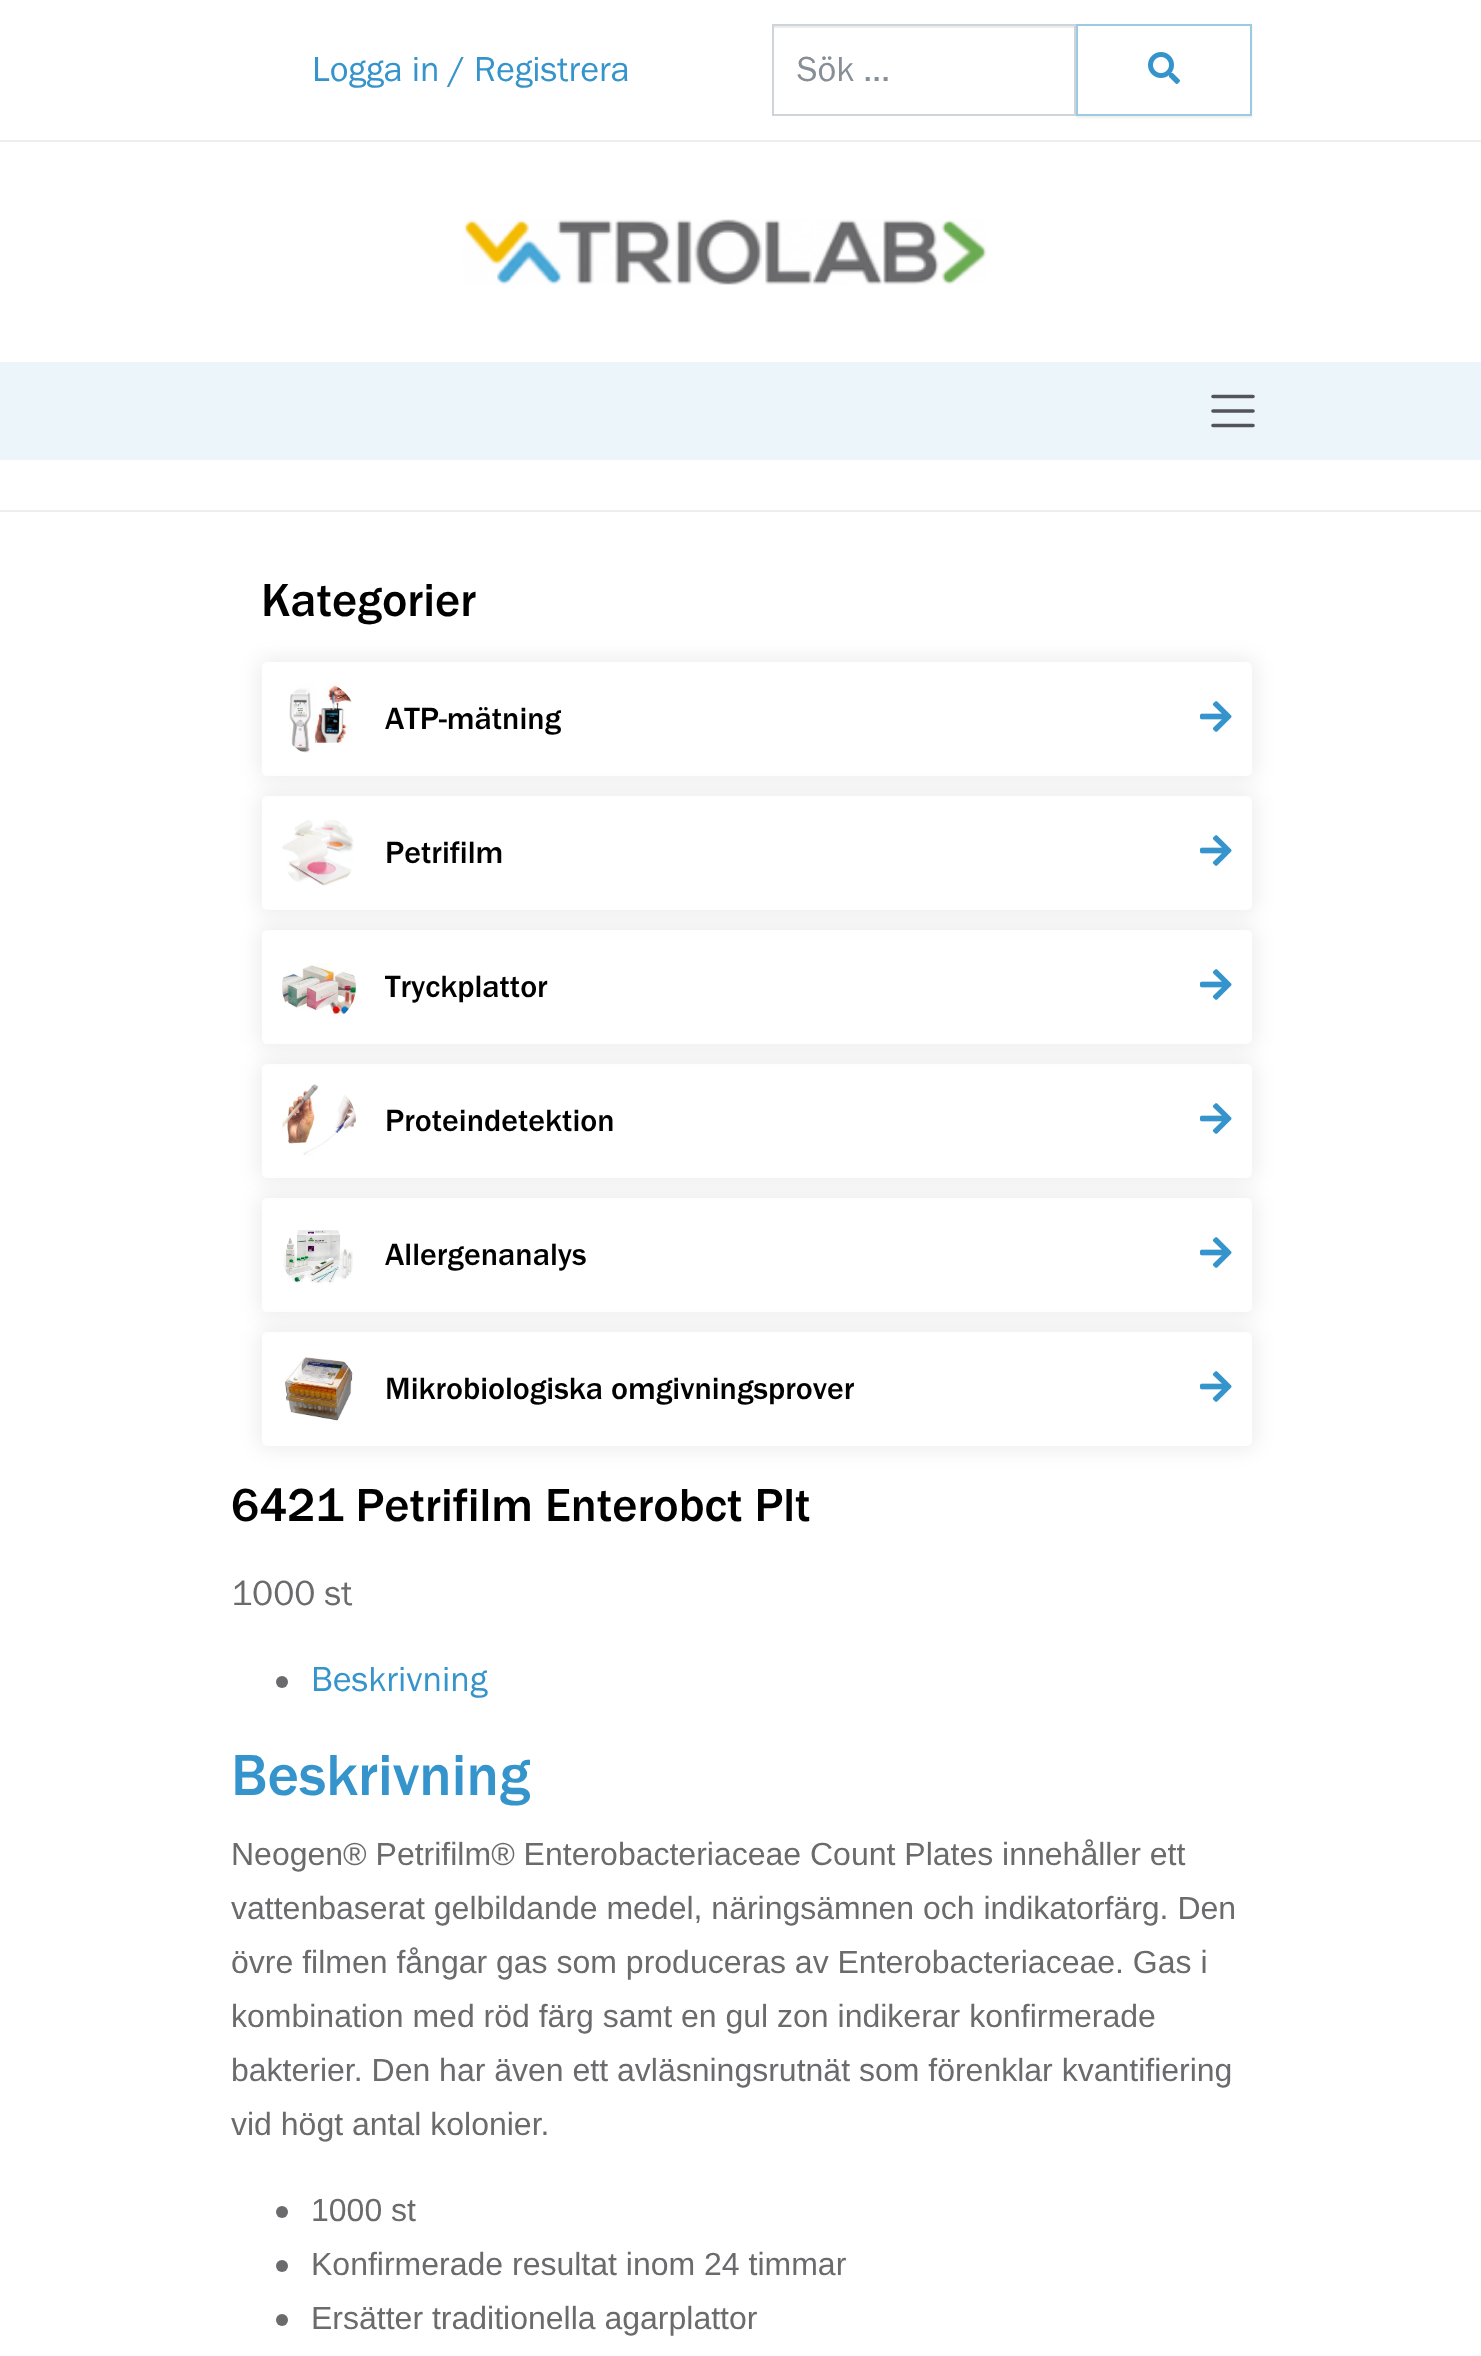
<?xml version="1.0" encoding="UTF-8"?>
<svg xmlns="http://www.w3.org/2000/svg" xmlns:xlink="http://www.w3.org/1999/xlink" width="1481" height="2356">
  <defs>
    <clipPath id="clip1"><path d="M 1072 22 h 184 v 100 h -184 z m 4 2 h 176 v 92 h -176 z" clip-rule="evenodd" /></clipPath>
    <clipPath id="clip2"><path d="M 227 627 h 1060 v 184 h -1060 z m 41 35 h 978 c 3.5 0 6 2.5 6 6 v 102 c 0 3.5 -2.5 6 -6 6 h -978 c -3.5 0 -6 -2.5 -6 -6 v -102 c 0 -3.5 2.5 -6 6 -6 z" clip-rule="evenodd" /></clipPath>
    <clipPath id="clip3"><path d="M 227 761 h 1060 v 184 h -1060 z m 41 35 h 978 c 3.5 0 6 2.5 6 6 v 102 c 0 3.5 -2.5 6 -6 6 h -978 c -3.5 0 -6 -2.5 -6 -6 v -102 c 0 -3.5 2.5 -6 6 -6 z" clip-rule="evenodd" /></clipPath>
    <clipPath id="clip4"><path d="M 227 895 h 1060 v 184 h -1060 z m 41 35 h 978 c 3.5 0 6 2.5 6 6 v 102 c 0 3.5 -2.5 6 -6 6 h -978 c -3.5 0 -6 -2.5 -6 -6 v -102 c 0 -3.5 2.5 -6 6 -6 z" clip-rule="evenodd" /></clipPath>
    <clipPath id="clip5"><path d="M 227 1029 h 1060 v 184 h -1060 z m 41 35 h 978 c 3.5 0 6 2.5 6 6 v 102 c 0 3.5 -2.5 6 -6 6 h -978 c -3.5 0 -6 -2.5 -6 -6 v -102 c 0 -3.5 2.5 -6 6 -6 z" clip-rule="evenodd" /></clipPath>
    <clipPath id="clip6"><path d="M 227 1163 h 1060 v 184 h -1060 z m 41 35 h 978 c 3.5 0 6 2.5 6 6 v 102 c 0 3.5 -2.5 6 -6 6 h -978 c -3.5 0 -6 -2.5 -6 -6 v -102 c 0 -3.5 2.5 -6 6 -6 z" clip-rule="evenodd" /></clipPath>
    <clipPath id="clip7"><path d="M 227 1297 h 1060 v 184 h -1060 z m 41 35 h 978 c 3.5 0 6 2.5 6 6 v 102 c 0 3.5 -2.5 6 -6 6 h -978 c -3.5 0 -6 -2.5 -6 -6 v -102 c 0 -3.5 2.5 -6 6 -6 z" clip-rule="evenodd" /></clipPath>
  </defs>
  <rect width="100%" height="100%" fill="#ffffff" />
  <rect y="140" width="1481" height="2" fill="#eeeeee" />
  <g clip-path="url(#clip1)">
    <rect x="1076" y="26" width="176" height="92" fill="#000000" fill-opacity="0.07" filter="blur(1px)" />
  </g>
  <rect x="774" y="26" width="300" height="2" fill="#ececec" />
  <rect x="773" y="25" width="302" height="90" fill="none" stroke="#ced4da" stroke-width="2" />
  <rect x="1077" y="25" width="174" height="90" fill="none" stroke="#9acae5" stroke-width="2" />
  <image x="1148" y="52" width="32" height="32" xlink:href="image1.png" />
  <image x="463" y="219" width="524" height="66" xlink:href="image2.png" />
  <rect y="362" width="1481" height="98" fill="#ecf5fa" />
  <path d="M 1213 396.5 h 40 m -40 14.5 h 40 m -40 14.5 h 40" fill="none" stroke="#53545a" stroke-width="3.6" stroke-linecap="round" />
  <rect y="510" width="1481" height="2" fill="#eeeeee" />
  <g clip-path="url(#clip2)">
    <rect x="258" y="658" width="998" height="122" rx="10" fill="#000000" fill-opacity="0.07" filter="blur(10px)" />
  </g>
  <image x="289" y="683" width="63" height="70" xlink:href="image3.png" />
  <image x="1200" y="701" width="32" height="31" xlink:href="image4.png" />
  <g clip-path="url(#clip3)">
    <rect x="258" y="792" width="998" height="122" rx="10" fill="#000000" fill-opacity="0.07" filter="blur(10px)" />
  </g>
  <image x="282" y="820" width="72" height="66" xlink:href="image5.png" />
  <image x="1200" y="835" width="32" height="31" xlink:href="image4.png" />
  <g clip-path="url(#clip4)">
    <rect x="258" y="926" width="998" height="122" rx="10" fill="#000000" fill-opacity="0.07" filter="blur(10px)" />
  </g>
  <image x="282" y="963" width="74" height="54" xlink:href="image6.png" />
  <image x="1200" y="969" width="32" height="31" xlink:href="image4.png" />
  <g clip-path="url(#clip5)">
    <rect x="258" y="1060" width="998" height="122" rx="10" fill="#000000" fill-opacity="0.07" filter="blur(10px)" />
  </g>
  <image x="282" y="1084" width="74" height="72" xlink:href="image7.png" />
  <image x="1200" y="1103" width="32" height="31" xlink:href="image4.png" />
  <g clip-path="url(#clip6)">
    <rect x="258" y="1194" width="998" height="122" rx="10" fill="#000000" fill-opacity="0.07" filter="blur(10px)" />
  </g>
  <image x="283" y="1230" width="70" height="54" xlink:href="image8.png" />
  <image x="1200" y="1237" width="32" height="31" xlink:href="image4.png" />
  <g clip-path="url(#clip7)">
    <rect x="258" y="1328" width="998" height="122" rx="10" fill="#000000" fill-opacity="0.07" filter="blur(10px)" />
  </g>
  <image x="284" y="1357" width="69" height="64" xlink:href="image9.png" />
  <image x="1200" y="1371" width="32" height="31" xlink:href="image4.png" />
  <circle cx="282" cy="1682" r="6" fill="#6b6b6d" />
  <circle cx="282" cy="2212" r="6" fill="#6b6b6d" />
  <circle cx="282" cy="2266" r="6" fill="#6b6b6d" />
  <circle cx="282" cy="2320" r="6" fill="#6b6b6d" />
  <text x="312" y="81" style="font-family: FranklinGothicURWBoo; font-size: 36px; fill: #3594cb">Logga in / Registrera</text>
  <text x="797" y="81" style="font-family: FranklinGothicURWBoo; font-size: 36px; fill: #868e96">Sök …</text>
  <text x="261" y="616" style="font-family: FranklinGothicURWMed; font-size: 48px; fill: #000000">Kategorier</text>
  <text x="385" y="729" style="font-family: FranklinGothicURWMed; font-size: 32px; fill: #000000">ATP-mätning</text>
  <text x="385" y="863" style="font-family: FranklinGothicURWMed; font-size: 32px; fill: #000000">Petrifilm</text>
  <text x="385" y="997" style="font-family: FranklinGothicURWMed; font-size: 32px; fill: #000000">Tryckplattor</text>
  <text x="385" y="1131" style="font-family: FranklinGothicURWMed; font-size: 32px; fill: #000000">Proteindetektion</text>
  <text x="385" y="1265" style="font-family: FranklinGothicURWMed; font-size: 32px; fill: #000000">Allergenanalys</text>
  <text x="385" y="1399" style="font-family: FranklinGothicURWMed; font-size: 32px; fill: #000000">Mikrobiologiska omgivningsprover</text>
  <text x="231" y="1521" style="font-family: FranklinGothicURWMed; font-size: 48px; fill: #000000">6421 Petrifilm Enterobct Plt</text>
  <text x="231" y="1605" style="font-family: FranklinGothicURWBoo; font-size: 36px; fill: #6b6b6d">1000 st</text>
  <text x="311" y="1691" style="font-family: FranklinGothicURWBoo; font-size: 36px; fill: #3594cb">Beskrivning</text>
  <text x="231" y="1795" style="font-family: FranklinGothicURWMed; font-size: 60px; fill: #3594cb">Beskrivning</text>
  <text x="231" y="1865" style="font-family: Liberation Sans; font-size: 32px; fill: #6b6b6d">Neogen® Petrifilm® Enterobacteriaceae Count Plates innehåller ett</text>
  <text x="231" y="1919" style="font-family: Liberation Sans; font-size: 32px; fill: #6b6b6d">vattenbaserat gelbildande medel, näringsämnen och indikatorfärg. Den</text>
  <text x="231" y="1973" style="font-family: Liberation Sans; font-size: 32px; fill: #6b6b6d">övre filmen fångar gas som produceras av Enterobacteriaceae. Gas i</text>
  <text x="231" y="2027" style="font-family: Liberation Sans; font-size: 32px; fill: #6b6b6d">kombination med röd färg samt en gul zon indikerar konfirmerade</text>
  <text x="231" y="2081" style="font-family: Liberation Sans; font-size: 32px; fill: #6b6b6d">bakterier. Den har även ett avläsningsrutnät som förenklar kvantifiering</text>
  <text x="231" y="2135" style="font-family: Liberation Sans; font-size: 32px; fill: #6b6b6d">vid högt antal kolonier.</text>
  <text x="311" y="2221" style="font-family: Liberation Sans; font-size: 32px; fill: #6b6b6d">1000 st</text>
  <text x="311" y="2275" style="font-family: Liberation Sans; font-size: 32px; fill: #6b6b6d">Konfirmerade resultat inom 24 timmar</text>
  <text x="311" y="2329" style="font-family: Liberation Sans; font-size: 32px; fill: #6b6b6d">Ersätter traditionella agarplattor</text>
</svg>
